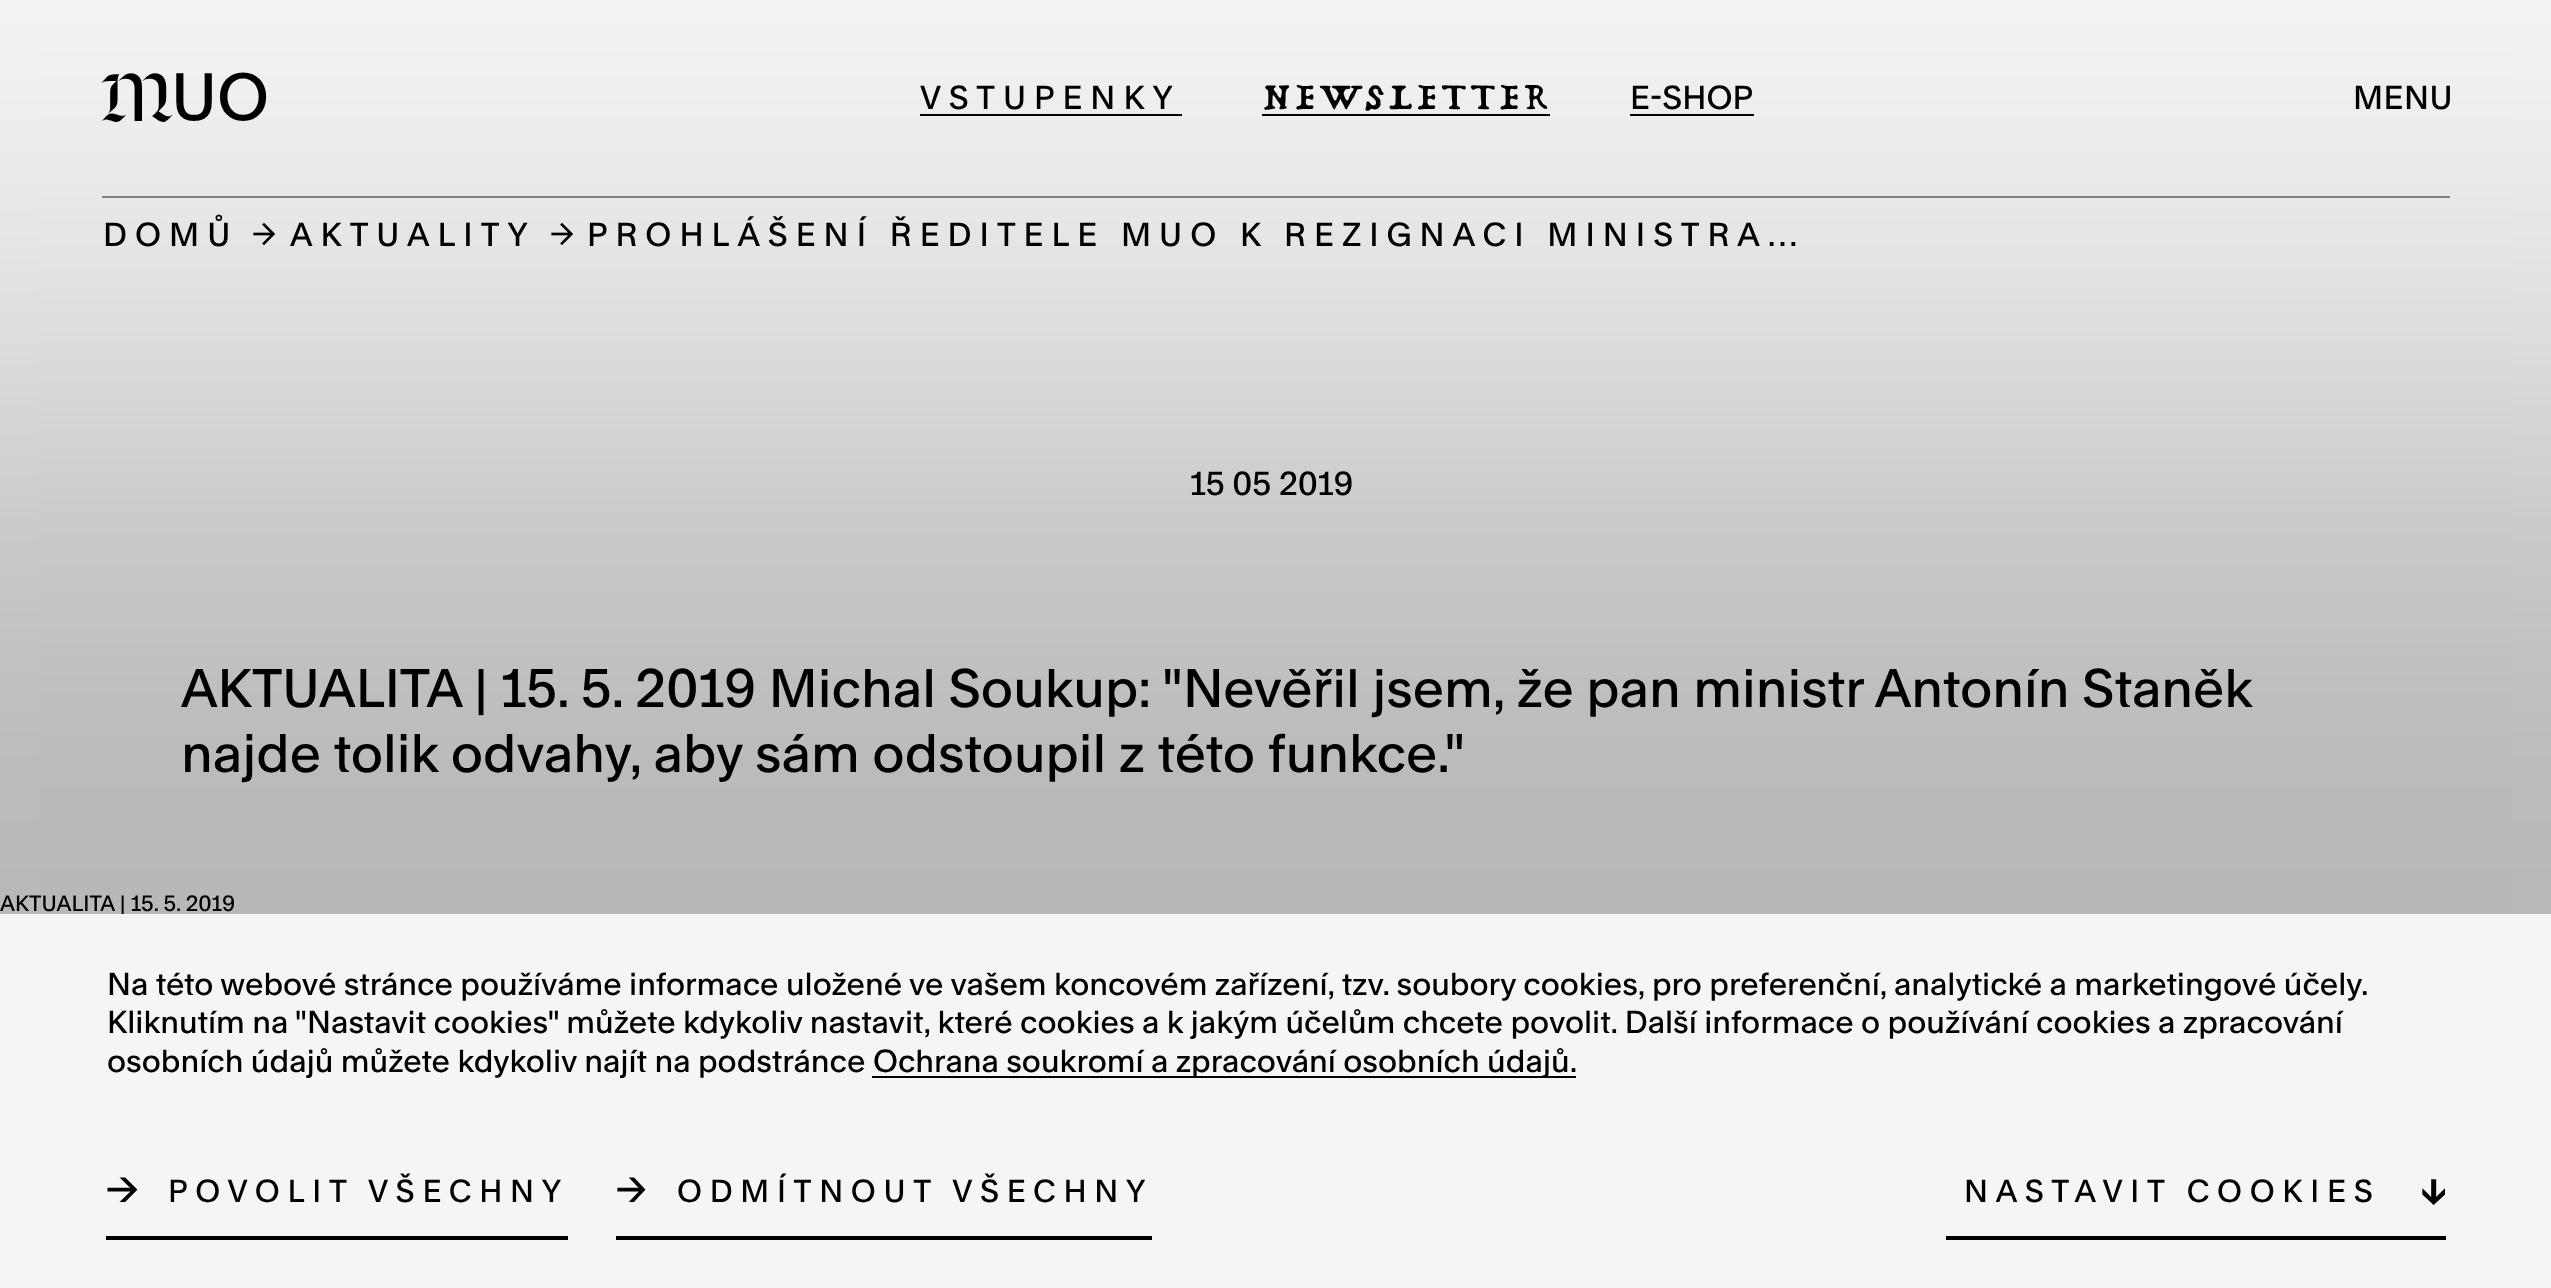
<?xml version="1.0" encoding="UTF-8"?>
<svg xmlns="http://www.w3.org/2000/svg" xmlns:xlink="http://www.w3.org/1999/xlink" width="2551" height="1288">
  <rect width="100%" height="100%" fill="#f5f5f5" />
  <rect x="920" y="114" width="262" height="2" fill="#000000" />
  <rect x="1262" y="114" width="288" height="2" fill="#000000" />
  <rect x="1630" y="114" width="124" height="2" fill="#000000" />
  <rect x="102" y="196" width="2348" height="2" fill="#8c8681" />
  <image x="253" y="222" width="23" height="24" xlink:href="image1.png" />
  <image x="551" y="222" width="23" height="24" xlink:href="image1.png" />
  <rect x="-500" y="404" width="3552" height="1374" fill="#000000" fill-opacity="0.25" filter="blur(250px)" />
  <text x="99" y="121" style="font-family: 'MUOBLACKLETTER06'; font-size: 64px; font-weight: 900; fill: #000000">M</text>
  <text x="171" y="120" style="font-family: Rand; font-size: 64px; font-weight: 500; fill: #000000">UO</text>
  <text x="920" y="109" style="font-family: Rand; font-size: 32px; font-weight: 500; letter-spacing: 8px; fill: #000000">VSTUPENKY</text>
  <text x="1261" y="109" style="font-family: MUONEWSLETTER; font-size: 32px; fill: #000000">NEWSLETTER</text>
  <text x="1630" y="109" style="font-family: Rand; font-size: 32px; font-weight: 500; fill: #000000">E-SHOP</text>
  <text x="2353" y="109" style="font-family: Rand; font-size: 32px; font-weight: 500; letter-spacing: 0.5px; fill: #000000">MENU</text>
  <text x="103" y="246" style="font-family: Rand; font-size: 32px; font-weight: 500; letter-spacing: 8px; fill: #000000">DOMŮ</text>
  <text x="290" y="246" style="font-family: Rand; font-size: 32px; font-weight: 500; letter-spacing: 8px; fill: #000000">AKTUALITY</text>
  <text x="587" y="246" style="font-family: Rand; font-size: 32px; font-weight: 500; letter-spacing: 8px; fill: #000000">PROHLÁŠENÍ ŘEDITELE MUO K REZIGNACI MINISTRA…</text>
  <text x="1190" y="495" style="font-family: Rand; font-size: 32px; font-weight: 500; fill: #000000">15 05 2019</text>
  <text x="181" y="707" style="font-family: Rand; font-size: 52px; font-weight: 500; fill: #000000">AKTUALITA | 15. 5. 2019 Michal Soukup: "Nevěřil jsem, že pan ministr Antonín Staněk</text>
  <text x="181" y="772" style="font-family: Rand; font-size: 52px; font-weight: 500; fill: #000000">najde tolik odvahy, aby sám odstoupil z této funkce."</text>
  <text x="0" y="911" style="font-family: Rand; font-size: 21.25px; font-weight: 500; fill: #000000">AKTUALITA | 15. 5. 2019</text>
  <rect y="914" width="2551" height="374" fill="#f5f5f5" />
  <text x="107" y="995" style="font-family: Rand; font-size: 30.67px; font-weight: 500; fill: #000000">Na této webové stránce používáme informace uložené ve vašem koncovém zařízení, tzv. soubory cookies, pro preferenční, analytické a marketingové účely.</text>
  <text x="107" y="1033" style="font-family: Rand; font-size: 30.67px; font-weight: 500; fill: #000000">Kliknutím na "Nastavit cookies" můžete kdykoliv nastavit, které cookies a k jakým účelům chcete povolit. Další informace o používání cookies a zpracování</text>
  <text x="107" y="1072" style="font-family: Rand; font-size: 30.67px; font-weight: 500; fill: #000000">osobních údajů můžete kdykoliv najít na podstránce</text>
  <rect x="872" y="1076" width="704" height="2" fill="#000000" />
  <text x="873" y="1072" style="font-family: Rand; font-size: 30.67px; font-weight: 500; fill: #000000">Ochrana soukromí a zpracování osobních údajů.</text>
  <rect x="106" y="1236" width="462" height="4" fill="#000000" />
  <image x="107" y="1177" width="31" height="25" xlink:href="image2.png" />
  <text x="168" y="1202" style="font-family: Rand; font-size: 30.67px; font-weight: 500; letter-spacing: 7.7px; fill: #000000">POVOLIT VŠECHNY</text>
  <rect x="616" y="1236" width="536" height="4" fill="#000000" />
  <image x="617" y="1177" width="29" height="25" xlink:href="image3.png" />
  <text x="677" y="1202" style="font-family: Rand; font-size: 30.67px; font-weight: 500; letter-spacing: 7.7px; fill: #000000">ODMÍTNOUT VŠECHNY</text>
  <rect x="1946" y="1236" width="500" height="4" fill="#000000" />
  <text x="1964" y="1202" style="font-family: Rand; font-size: 30.67px; font-weight: 500; letter-spacing: 7.7px; fill: #000000">NASTAVIT COOKIES</text>
  <image x="2422" y="1179" width="23" height="26" xlink:href="image4.png" />
</svg>
